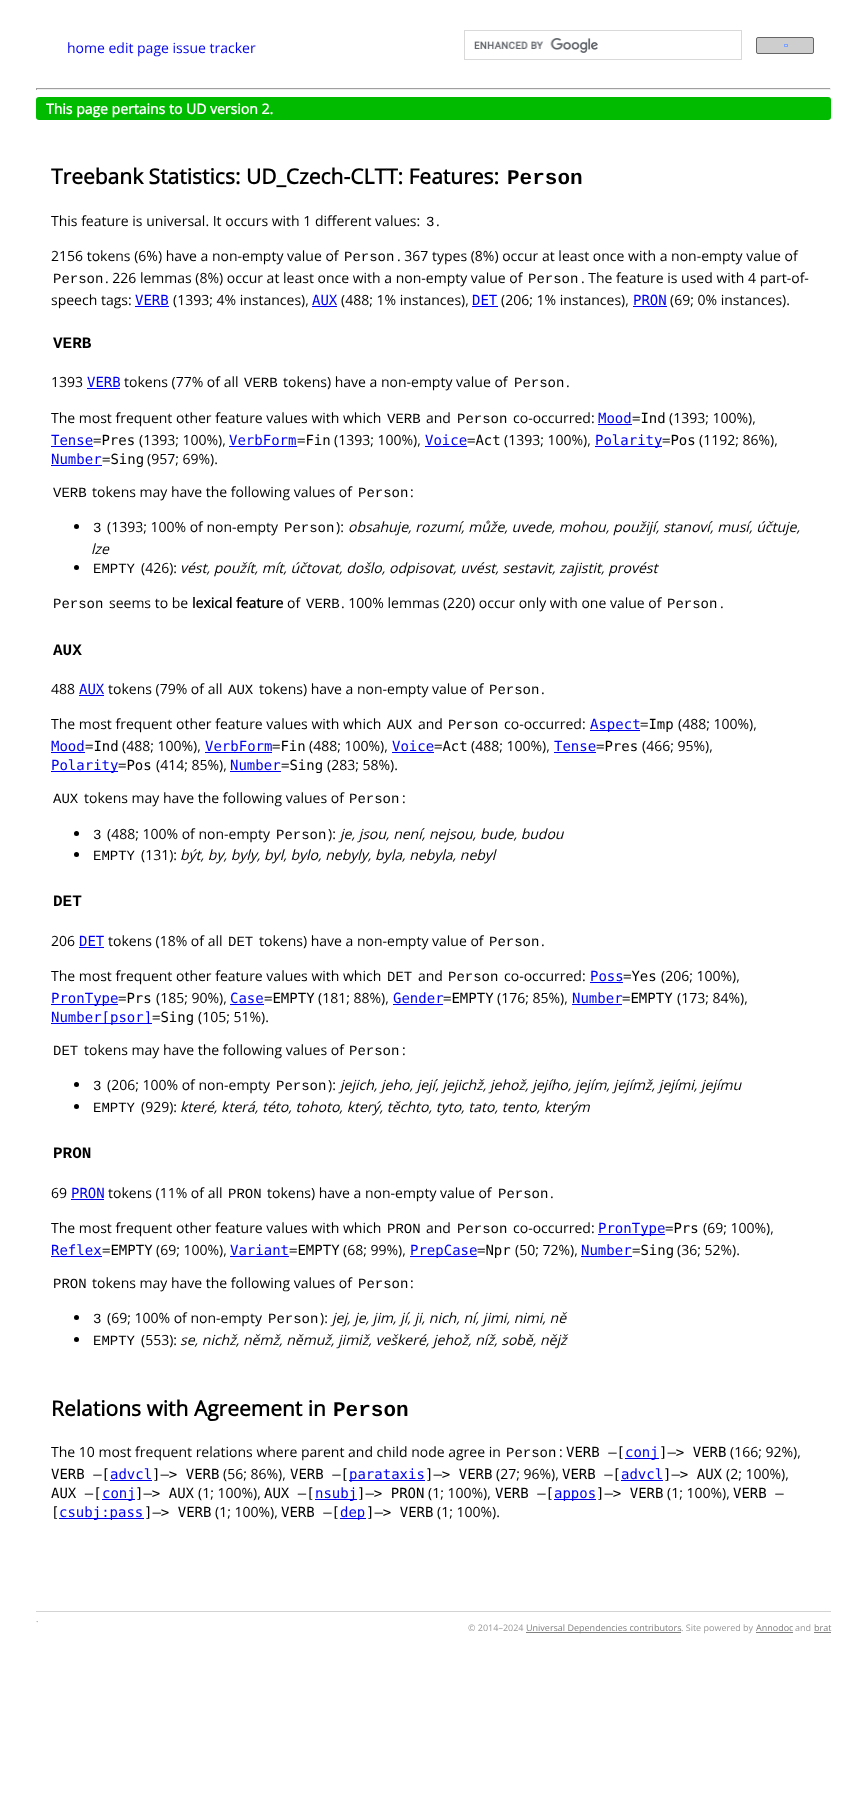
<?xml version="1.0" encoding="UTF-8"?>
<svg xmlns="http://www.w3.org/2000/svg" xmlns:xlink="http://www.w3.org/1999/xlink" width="867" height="1807">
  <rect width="100%" height="100%" fill="#ffffff" />
  <rect x="464.5" y="30.5" width="277" height="29" fill="none" stroke="#d9d9d9" />
  <image x="474" y="38" width="124" height="15" xlink:href="image1.png" />
  <rect x="756.5" y="37.5" width="57" height="16" rx="1.5" fill="#cecece" stroke="#666666" />
  <rect x="784.5" y="44.5" width="3" height="2" fill="none" stroke="#7fa2ff" />
  <rect x="785" y="45" width="2" height="1" fill="#d5d5d5" />
  <rect x="36" y="88" width="795" height="1" fill="#9f9f9f" />
  <rect x="830" y="88" width="1" height="2" fill="#eeeeee" />
  <rect x="36" y="89" width="795" height="1" fill="#eeeeee" />
  <rect x="36" y="88" width="1" height="2" fill="#9f9f9f" />
  <rect x="36" y="97" width="795" height="23" rx="3" fill="#00bb00" />
  <rect x="135" y="306" width="34" height="1" fill="#0000ee" />
  <rect x="312" y="306" width="25" height="1" fill="#0000ee" />
  <rect x="472" y="306" width="26" height="1" fill="#0000ee" />
  <rect x="633" y="306" width="34" height="1" fill="#0000ee" />
  <rect x="87" y="388" width="33" height="1" fill="#0000ee" />
  <rect x="598" y="424" width="34" height="1" fill="#0000ee" />
  <rect x="51" y="446" width="42" height="1" fill="#0000ee" />
  <rect x="229" y="446" width="68" height="1" fill="#0000ee" />
  <rect x="425" y="446" width="42" height="1" fill="#0000ee" />
  <rect x="595" y="446" width="67" height="1" fill="#0000ee" />
  <rect x="51" y="465" width="51" height="1" fill="#0000ee" />
  <circle cx="76.5" cy="526.5" r="2.5" fill="#000000" />
  <circle cx="76.5" cy="567.5" r="2.5" fill="#000000" />
  <rect x="79" y="695" width="25" height="1" fill="#0000ee" />
  <rect x="590" y="730" width="50" height="1" fill="#0000ee" />
  <rect x="51" y="752" width="34" height="1" fill="#0000ee" />
  <rect x="205" y="752" width="67" height="1" fill="#0000ee" />
  <rect x="392" y="752" width="42" height="1" fill="#0000ee" />
  <rect x="554" y="752" width="42" height="1" fill="#0000ee" />
  <rect x="51" y="771" width="67" height="1" fill="#0000ee" />
  <rect x="230" y="771" width="51" height="1" fill="#0000ee" />
  <circle cx="76.5" cy="833.5" r="2.5" fill="#000000" />
  <circle cx="76.5" cy="854.5" r="2.5" fill="#000000" />
  <rect x="79" y="947" width="25" height="1" fill="#0000ee" />
  <rect x="590" y="982" width="33" height="1" fill="#0000ee" />
  <rect x="51" y="1004" width="67" height="1" fill="#0000ee" />
  <rect x="230" y="1004" width="34" height="1" fill="#0000ee" />
  <rect x="393" y="1004" width="50" height="1" fill="#0000ee" />
  <rect x="572" y="1004" width="50" height="1" fill="#0000ee" />
  <rect x="51" y="1023" width="101" height="1" fill="#0000ee" />
  <circle cx="76.5" cy="1084.5" r="2.5" fill="#000000" />
  <circle cx="76.5" cy="1106.5" r="2.5" fill="#000000" />
  <rect x="71" y="1199" width="33" height="1" fill="#0000ee" />
  <rect x="598" y="1234" width="67" height="1" fill="#0000ee" />
  <rect x="51" y="1256" width="51" height="1" fill="#0000ee" />
  <rect x="230" y="1256" width="59" height="1" fill="#0000ee" />
  <rect x="410" y="1256" width="67" height="1" fill="#0000ee" />
  <rect x="581" y="1256" width="51" height="1" fill="#0000ee" />
  <circle cx="76.5" cy="1317.5" r="2.5" fill="#000000" />
  <circle cx="76.5" cy="1339.5" r="2.5" fill="#000000" />
  <rect x="625" y="1458" width="34" height="1" fill="#0000ee" />
  <rect x="110" y="1480" width="42" height="1" fill="#0000ee" />
  <rect x="349" y="1480" width="76" height="1" fill="#0000ee" />
  <rect x="621" y="1480" width="42" height="1" fill="#0000ee" />
  <rect x="102" y="1499" width="33" height="1" fill="#0000ee" />
  <rect x="315" y="1499" width="42" height="1" fill="#0000ee" />
  <rect x="554" y="1499" width="42" height="1" fill="#0000ee" />
  <rect x="59" y="1518" width="85" height="1" fill="#0000ee" />
  <rect x="340" y="1518" width="26" height="1" fill="#0000ee" />
  <rect x="36" y="1611" width="795" height="1" fill="#d3d3d3" />
  <rect x="526" y="1632" width="155" height="1" fill="#808080" />
  <rect x="756" y="1632" width="37" height="1" fill="#808080" />
  <rect x="814" y="1632" width="17" height="1" fill="#808080" />
  <text x="67" y="53" style="font-family: Open Sans; font-size: 14px; fill: #0000ee">home edit page issue tracker</text>
  <text x="46" y="114" style="font-family: Open Sans; font-size: 14px; font-weight: bold; fill: #ffffff">This page pertains to UD version 2.</text>
  <text x="51" y="184" style="font-family: Open Sans; font-size: 21px; font-weight: bold; fill: #000000">Treebank Statistics: UD_Czech-CLTT: Features:</text>
  <text x="507" y="184" style="font-family: Liberation Mono; font-size: 21px; font-weight: bold; fill: #000000">Person</text>
  <text x="51" y="226" style="font-family: Open Sans; font-size: 14px; fill: #000000">This feature is universal. It occurs with 1 different values:</text>
  <text x="426" y="226" style="font-family: Liberation Mono; font-size: 14px; fill: #000000">3</text>
  <text x="436" y="226" style="font-family: Open Sans; font-size: 14px; fill: #000000">.</text>
  <text x="51" y="261" style="font-family: Open Sans; font-size: 14px; fill: #000000">2156 tokens (6%) have a non-empty value of</text>
  <text x="344" y="261" style="font-family: Liberation Mono; font-size: 14px; fill: #000000">Person</text>
  <text x="397" y="261" style="font-family: Open Sans; font-size: 14px; fill: #000000">. 367 types (8%) occur at least once with a non-empty value of</text>
  <text x="53" y="283" style="font-family: Liberation Mono; font-size: 14px; fill: #000000">Person</text>
  <text x="105" y="283" style="font-family: Open Sans; font-size: 14px; fill: #000000">. 226 lemmas (8%) occur at least once with a non-empty value of</text>
  <text x="528" y="283" style="font-family: Liberation Mono; font-size: 14px; fill: #000000">Person</text>
  <text x="581" y="283" style="font-family: Open Sans; font-size: 14px; fill: #000000">. The feature is used with 4 part-of-</text>
  <text x="51" y="305" style="font-family: Open Sans; font-size: 14px; fill: #000000">speech tags:</text>
  <text x="135" y="305" style="font-family: DejaVu Sans Mono; font-size: 14px; fill: #0000ee">VERB</text>
  <text x="173" y="305" style="font-family: Open Sans; font-size: 14px; fill: #000000">(1393; 4% instances),</text>
  <text x="312" y="305" style="font-family: DejaVu Sans Mono; font-size: 14px; fill: #0000ee">AUX</text>
  <text x="341" y="305" style="font-family: Open Sans; font-size: 14px; fill: #000000">(488; 1% instances),</text>
  <text x="472" y="305" style="font-family: DejaVu Sans Mono; font-size: 14px; fill: #0000ee">DET</text>
  <text x="501" y="305" style="font-family: Open Sans; font-size: 14px; fill: #000000">(206; 1% instances),</text>
  <text x="633" y="305" style="font-family: DejaVu Sans Mono; font-size: 14px; fill: #0000ee">PRON</text>
  <text x="670" y="305" style="font-family: Open Sans; font-size: 14px; fill: #000000">(69; 0% instances).</text>
  <text x="53" y="348" style="font-family: Liberation Mono; font-size: 16px; font-weight: bold; fill: #000000">VERB</text>
  <text x="51" y="387" style="font-family: Open Sans; font-size: 14px; fill: #000000">1393</text>
  <text x="87" y="387" style="font-family: DejaVu Sans Mono; font-size: 14px; fill: #0000ee">VERB</text>
  <text x="124" y="387" style="font-family: Open Sans; font-size: 14px; fill: #000000">tokens (77% of all</text>
  <text x="244" y="387" style="font-family: Liberation Mono; font-size: 14px; fill: #000000">VERB</text>
  <text x="283" y="387" style="font-family: Open Sans; font-size: 14px; fill: #000000">tokens) have a non-empty value of</text>
  <text x="514" y="387" style="font-family: Liberation Mono; font-size: 14px; fill: #000000">Person</text>
  <text x="566" y="387" style="font-family: Open Sans; font-size: 14px; fill: #000000">.</text>
  <text x="51" y="423" style="font-family: Open Sans; font-size: 14px; fill: #000000">The most frequent other feature values with which</text>
  <text x="387" y="423" style="font-family: Liberation Mono; font-size: 14px; fill: #000000">VERB</text>
  <text x="426" y="423" style="font-family: Open Sans; font-size: 14px; fill: #000000">and</text>
  <text x="457" y="423" style="font-family: Liberation Mono; font-size: 14px; fill: #000000">Person</text>
  <text x="513" y="423" style="font-family: Open Sans; font-size: 14px; fill: #000000">co-occurred:</text>
  <text x="598" y="423" style="font-family: DejaVu Sans Mono; font-size: 14px; fill: #0000ee">Mood</text>
  <text x="632" y="423" style="font-family: DejaVu Sans Mono; font-size: 14px; fill: #000000">=Ind</text>
  <text x="669" y="423" style="font-family: Open Sans; font-size: 14px; fill: #000000">(1393; 100%),</text>
  <text x="51" y="445" style="font-family: DejaVu Sans Mono; font-size: 14px; fill: #0000ee">Tense</text>
  <text x="93" y="445" style="font-family: DejaVu Sans Mono; font-size: 14px; fill: #000000">=Pres</text>
  <text x="139" y="445" style="font-family: Open Sans; font-size: 14px; fill: #000000">(1393; 100%),</text>
  <text x="229" y="445" style="font-family: DejaVu Sans Mono; font-size: 14px; fill: #0000ee">VerbForm</text>
  <text x="297" y="445" style="font-family: DejaVu Sans Mono; font-size: 14px; fill: #000000">=Fin</text>
  <text x="334" y="445" style="font-family: Open Sans; font-size: 14px; fill: #000000">(1393; 100%),</text>
  <text x="425" y="445" style="font-family: DejaVu Sans Mono; font-size: 14px; fill: #0000ee">Voice</text>
  <text x="467" y="445" style="font-family: DejaVu Sans Mono; font-size: 14px; fill: #000000">=Act</text>
  <text x="504" y="445" style="font-family: Open Sans; font-size: 14px; fill: #000000">(1393; 100%),</text>
  <text x="595" y="445" style="font-family: DejaVu Sans Mono; font-size: 14px; fill: #0000ee">Polarity</text>
  <text x="662" y="445" style="font-family: DejaVu Sans Mono; font-size: 14px; fill: #000000">=Pos</text>
  <text x="699" y="445" style="font-family: Open Sans; font-size: 14px; fill: #000000">(1192; 86%),</text>
  <text x="51" y="464" style="font-family: DejaVu Sans Mono; font-size: 14px; fill: #0000ee">Number</text>
  <text x="102" y="464" style="font-family: DejaVu Sans Mono; font-size: 14px; fill: #000000">=Sing</text>
  <text x="147" y="464" style="font-family: Open Sans; font-size: 14px; fill: #000000">(957; 69%).</text>
  <text x="53" y="497" style="font-family: Liberation Mono; font-size: 14px; fill: #000000">VERB</text>
  <text x="92" y="497" style="font-family: Open Sans; font-size: 14px; fill: #000000">tokens may have the following values of</text>
  <text x="358" y="497" style="font-family: Liberation Mono; font-size: 14px; fill: #000000">Person</text>
  <text x="410" y="497" style="font-family: Open Sans; font-size: 14px; fill: #000000">:</text>
  <text x="93" y="532" style="font-family: Liberation Mono; font-size: 14px; fill: #000000">3</text>
  <text x="107" y="532" style="font-family: Open Sans; font-size: 14px; fill: #000000">(1393; 100% of non-empty</text>
  <text x="284" y="532" style="font-family: Liberation Mono; font-size: 14px; fill: #000000">Person</text>
  <text x="336" y="532" style="font-family: Open Sans; font-size: 14px; fill: #000000">):</text>
  <text x="348" y="532" style="font-family: Open Sans; font-size: 14px; font-style: italic; fill: #000000">obsahuje, rozumí, může, uvede, mohou, použijí, stanoví, musí, účtuje,</text>
  <text x="91" y="554" style="font-family: Open Sans; font-size: 14px; font-style: italic; fill: #000000">lze</text>
  <text x="93" y="573" style="font-family: Liberation Mono; font-size: 14px; fill: #000000">EMPTY</text>
  <text x="141" y="573" style="font-family: Open Sans; font-size: 14px; fill: #000000">(426):</text>
  <text x="180" y="573" style="font-family: Open Sans; font-size: 14px; font-style: italic; fill: #000000">vést, použít, mít, účtovat, došlo, odpisovat, uvést, sestavit, zajistit, provést</text>
  <text x="53" y="608" style="font-family: Liberation Mono; font-size: 14px; fill: #000000">Person</text>
  <text x="109" y="608" style="font-family: Open Sans; font-size: 14px; fill: #000000">seems to be</text>
  <text x="192" y="608" style="font-family: Open Sans; font-size: 14px; font-weight: bold; fill: #000000">lexical feature</text>
  <text x="287" y="608" style="font-family: Open Sans; font-size: 14px; fill: #000000">of</text>
  <text x="306" y="608" style="font-family: Liberation Mono; font-size: 14px; fill: #000000">VERB</text>
  <text x="341" y="608" style="font-family: Open Sans; font-size: 14px; fill: #000000">. 100% lemmas (220) occur only with one value of</text>
  <text x="667" y="608" style="font-family: Liberation Mono; font-size: 14px; fill: #000000">Person</text>
  <text x="720" y="608" style="font-family: Open Sans; font-size: 14px; fill: #000000">.</text>
  <text x="53" y="655" style="font-family: Liberation Mono; font-size: 16px; font-weight: bold; fill: #000000">AUX</text>
  <text x="51" y="694" style="font-family: Open Sans; font-size: 14px; fill: #000000">488</text>
  <text x="79" y="694" style="font-family: DejaVu Sans Mono; font-size: 14px; fill: #0000ee">AUX</text>
  <text x="108" y="694" style="font-family: Open Sans; font-size: 14px; fill: #000000">tokens (79% of all</text>
  <text x="228" y="694" style="font-family: Liberation Mono; font-size: 14px; fill: #000000">AUX</text>
  <text x="259" y="694" style="font-family: Open Sans; font-size: 14px; fill: #000000">tokens) have a non-empty value of</text>
  <text x="489" y="694" style="font-family: Liberation Mono; font-size: 14px; fill: #000000">Person</text>
  <text x="541" y="694" style="font-family: Open Sans; font-size: 14px; fill: #000000">.</text>
  <text x="51" y="729" style="font-family: Open Sans; font-size: 14px; fill: #000000">The most frequent other feature values with which</text>
  <text x="387" y="729" style="font-family: Liberation Mono; font-size: 14px; fill: #000000">AUX</text>
  <text x="418" y="729" style="font-family: Open Sans; font-size: 14px; fill: #000000">and</text>
  <text x="448" y="729" style="font-family: Liberation Mono; font-size: 14px; fill: #000000">Person</text>
  <text x="504" y="729" style="font-family: Open Sans; font-size: 14px; fill: #000000">co-occurred:</text>
  <text x="590" y="729" style="font-family: DejaVu Sans Mono; font-size: 14px; fill: #0000ee">Aspect</text>
  <text x="640" y="729" style="font-family: DejaVu Sans Mono; font-size: 14px; fill: #000000">=Imp</text>
  <text x="678" y="729" style="font-family: Open Sans; font-size: 14px; fill: #000000">(488; 100%),</text>
  <text x="51" y="751" style="font-family: DejaVu Sans Mono; font-size: 14px; fill: #0000ee">Mood</text>
  <text x="85" y="751" style="font-family: DejaVu Sans Mono; font-size: 14px; fill: #000000">=Ind</text>
  <text x="122" y="751" style="font-family: Open Sans; font-size: 14px; fill: #000000">(488; 100%),</text>
  <text x="205" y="751" style="font-family: DejaVu Sans Mono; font-size: 14px; fill: #0000ee">VerbForm</text>
  <text x="272" y="751" style="font-family: DejaVu Sans Mono; font-size: 14px; fill: #000000">=Fin</text>
  <text x="309" y="751" style="font-family: Open Sans; font-size: 14px; fill: #000000">(488; 100%),</text>
  <text x="392" y="751" style="font-family: DejaVu Sans Mono; font-size: 14px; fill: #0000ee">Voice</text>
  <text x="434" y="751" style="font-family: DejaVu Sans Mono; font-size: 14px; fill: #000000">=Act</text>
  <text x="471" y="751" style="font-family: Open Sans; font-size: 14px; fill: #000000">(488; 100%),</text>
  <text x="554" y="751" style="font-family: DejaVu Sans Mono; font-size: 14px; fill: #0000ee">Tense</text>
  <text x="596" y="751" style="font-family: DejaVu Sans Mono; font-size: 14px; fill: #000000">=Pres</text>
  <text x="642" y="751" style="font-family: Open Sans; font-size: 14px; fill: #000000">(466; 95%),</text>
  <text x="51" y="770" style="font-family: DejaVu Sans Mono; font-size: 14px; fill: #0000ee">Polarity</text>
  <text x="118" y="770" style="font-family: DejaVu Sans Mono; font-size: 14px; fill: #000000">=Pos</text>
  <text x="156" y="770" style="font-family: Open Sans; font-size: 14px; fill: #000000">(414; 85%),</text>
  <text x="230" y="770" style="font-family: DejaVu Sans Mono; font-size: 14px; fill: #0000ee">Number</text>
  <text x="281" y="770" style="font-family: DejaVu Sans Mono; font-size: 14px; fill: #000000">=Sing</text>
  <text x="327" y="770" style="font-family: Open Sans; font-size: 14px; fill: #000000">(283; 58%).</text>
  <text x="53" y="803" style="font-family: Liberation Mono; font-size: 14px; fill: #000000">AUX</text>
  <text x="84" y="803" style="font-family: Open Sans; font-size: 14px; fill: #000000">tokens may have the following values of</text>
  <text x="349" y="803" style="font-family: Liberation Mono; font-size: 14px; fill: #000000">Person</text>
  <text x="402" y="803" style="font-family: Open Sans; font-size: 14px; fill: #000000">:</text>
  <text x="93" y="839" style="font-family: Liberation Mono; font-size: 14px; fill: #000000">3</text>
  <text x="107" y="839" style="font-family: Open Sans; font-size: 14px; fill: #000000">(488; 100% of non-empty</text>
  <text x="276" y="839" style="font-family: Liberation Mono; font-size: 14px; fill: #000000">Person</text>
  <text x="328" y="839" style="font-family: Open Sans; font-size: 14px; fill: #000000">):</text>
  <text x="340" y="839" style="font-family: Open Sans; font-size: 14px; font-style: italic; fill: #000000">je, jsou, není, nejsou, bude, budou</text>
  <text x="93" y="860" style="font-family: Liberation Mono; font-size: 14px; fill: #000000">EMPTY</text>
  <text x="141" y="860" style="font-family: Open Sans; font-size: 14px; fill: #000000">(131):</text>
  <text x="180" y="860" style="font-family: Open Sans; font-size: 14px; font-style: italic; fill: #000000">být, by, byly, byl, bylo, nebyly, byla, nebyla, nebyl</text>
  <text x="53" y="906" style="font-family: Liberation Mono; font-size: 16px; font-weight: bold; fill: #000000">DET</text>
  <text x="51" y="946" style="font-family: Open Sans; font-size: 14px; fill: #000000">206</text>
  <text x="79" y="946" style="font-family: DejaVu Sans Mono; font-size: 14px; fill: #0000ee">DET</text>
  <text x="108" y="946" style="font-family: Open Sans; font-size: 14px; fill: #000000">tokens (18% of all</text>
  <text x="228" y="946" style="font-family: Liberation Mono; font-size: 14px; fill: #000000">DET</text>
  <text x="259" y="946" style="font-family: Open Sans; font-size: 14px; fill: #000000">tokens) have a non-empty value of</text>
  <text x="489" y="946" style="font-family: Liberation Mono; font-size: 14px; fill: #000000">Person</text>
  <text x="541" y="946" style="font-family: Open Sans; font-size: 14px; fill: #000000">.</text>
  <text x="51" y="981" style="font-family: Open Sans; font-size: 14px; fill: #000000">The most frequent other feature values with which</text>
  <text x="387" y="981" style="font-family: Liberation Mono; font-size: 14px; fill: #000000">DET</text>
  <text x="418" y="981" style="font-family: Open Sans; font-size: 14px; fill: #000000">and</text>
  <text x="448" y="981" style="font-family: Liberation Mono; font-size: 14px; fill: #000000">Person</text>
  <text x="504" y="981" style="font-family: Open Sans; font-size: 14px; fill: #000000">co-occurred:</text>
  <text x="590" y="981" style="font-family: DejaVu Sans Mono; font-size: 14px; fill: #0000ee">Poss</text>
  <text x="623" y="981" style="font-family: DejaVu Sans Mono; font-size: 14px; fill: #000000">=Yes</text>
  <text x="661" y="981" style="font-family: Open Sans; font-size: 14px; fill: #000000">(206; 100%),</text>
  <text x="51" y="1003" style="font-family: DejaVu Sans Mono; font-size: 14px; fill: #0000ee">PronType</text>
  <text x="118" y="1003" style="font-family: DejaVu Sans Mono; font-size: 14px; fill: #000000">=Prs</text>
  <text x="156" y="1003" style="font-family: Open Sans; font-size: 14px; fill: #000000">(185; 90%),</text>
  <text x="230" y="1003" style="font-family: DejaVu Sans Mono; font-size: 14px; fill: #0000ee">Case</text>
  <text x="264" y="1003" style="font-family: DejaVu Sans Mono; font-size: 14px; fill: #000000">=EMPTY</text>
  <text x="318" y="1003" style="font-family: Open Sans; font-size: 14px; fill: #000000">(181; 88%),</text>
  <text x="393" y="1003" style="font-family: DejaVu Sans Mono; font-size: 14px; fill: #0000ee">Gender</text>
  <text x="443" y="1003" style="font-family: DejaVu Sans Mono; font-size: 14px; fill: #000000">=EMPTY</text>
  <text x="497" y="1003" style="font-family: Open Sans; font-size: 14px; fill: #000000">(176; 85%),</text>
  <text x="572" y="1003" style="font-family: DejaVu Sans Mono; font-size: 14px; fill: #0000ee">Number</text>
  <text x="622" y="1003" style="font-family: DejaVu Sans Mono; font-size: 14px; fill: #000000">=EMPTY</text>
  <text x="677" y="1003" style="font-family: Open Sans; font-size: 14px; fill: #000000">(173; 84%),</text>
  <text x="51" y="1022" style="font-family: DejaVu Sans Mono; font-size: 14px; fill: #0000ee">Number[psor]</text>
  <text x="152" y="1022" style="font-family: DejaVu Sans Mono; font-size: 14px; fill: #000000">=Sing</text>
  <text x="198" y="1022" style="font-family: Open Sans; font-size: 14px; fill: #000000">(105; 51%).</text>
  <text x="53" y="1055" style="font-family: Liberation Mono; font-size: 14px; fill: #000000">DET</text>
  <text x="84" y="1055" style="font-family: Open Sans; font-size: 14px; fill: #000000">tokens may have the following values of</text>
  <text x="349" y="1055" style="font-family: Liberation Mono; font-size: 14px; fill: #000000">Person</text>
  <text x="402" y="1055" style="font-family: Open Sans; font-size: 14px; fill: #000000">:</text>
  <text x="93" y="1090" style="font-family: Liberation Mono; font-size: 14px; fill: #000000">3</text>
  <text x="107" y="1090" style="font-family: Open Sans; font-size: 14px; fill: #000000">(206; 100% of non-empty</text>
  <text x="276" y="1090" style="font-family: Liberation Mono; font-size: 14px; fill: #000000">Person</text>
  <text x="328" y="1090" style="font-family: Open Sans; font-size: 14px; fill: #000000">):</text>
  <text x="340" y="1090" style="font-family: Open Sans; font-size: 14px; font-style: italic; fill: #000000">jejich, jeho, její, jejichž, jehož, jejího, jejím, jejímž, jejími, jejímu</text>
  <text x="93" y="1112" style="font-family: Liberation Mono; font-size: 14px; fill: #000000">EMPTY</text>
  <text x="141" y="1112" style="font-family: Open Sans; font-size: 14px; fill: #000000">(929):</text>
  <text x="180" y="1112" style="font-family: Open Sans; font-size: 14px; font-style: italic; fill: #000000">které, která, této, tohoto, který, těchto, tyto, tato, tento, kterým</text>
  <text x="53" y="1158" style="font-family: Liberation Mono; font-size: 16px; font-weight: bold; fill: #000000">PRON</text>
  <text x="51" y="1198" style="font-family: Open Sans; font-size: 14px; fill: #000000">69</text>
  <text x="71" y="1198" style="font-family: DejaVu Sans Mono; font-size: 14px; fill: #0000ee">PRON</text>
  <text x="108" y="1198" style="font-family: Open Sans; font-size: 14px; fill: #000000">tokens (11% of all</text>
  <text x="228" y="1198" style="font-family: Liberation Mono; font-size: 14px; fill: #000000">PRON</text>
  <text x="267" y="1198" style="font-family: Open Sans; font-size: 14px; fill: #000000">tokens) have a non-empty value of</text>
  <text x="498" y="1198" style="font-family: Liberation Mono; font-size: 14px; fill: #000000">Person</text>
  <text x="550" y="1198" style="font-family: Open Sans; font-size: 14px; fill: #000000">.</text>
  <text x="51" y="1233" style="font-family: Open Sans; font-size: 14px; fill: #000000">The most frequent other feature values with which</text>
  <text x="387" y="1233" style="font-family: Liberation Mono; font-size: 14px; fill: #000000">PRON</text>
  <text x="426" y="1233" style="font-family: Open Sans; font-size: 14px; fill: #000000">and</text>
  <text x="457" y="1233" style="font-family: Liberation Mono; font-size: 14px; fill: #000000">Person</text>
  <text x="513" y="1233" style="font-family: Open Sans; font-size: 14px; fill: #000000">co-occurred:</text>
  <text x="598" y="1233" style="font-family: DejaVu Sans Mono; font-size: 14px; fill: #0000ee">PronType</text>
  <text x="665" y="1233" style="font-family: DejaVu Sans Mono; font-size: 14px; fill: #000000">=Prs</text>
  <text x="703" y="1233" style="font-family: Open Sans; font-size: 14px; fill: #000000">(69; 100%),</text>
  <text x="51" y="1255" style="font-family: DejaVu Sans Mono; font-size: 14px; fill: #0000ee">Reflex</text>
  <text x="102" y="1255" style="font-family: DejaVu Sans Mono; font-size: 14px; fill: #000000">=EMPTY</text>
  <text x="156" y="1255" style="font-family: Open Sans; font-size: 14px; fill: #000000">(69; 100%),</text>
  <text x="230" y="1255" style="font-family: DejaVu Sans Mono; font-size: 14px; fill: #0000ee">Variant</text>
  <text x="289" y="1255" style="font-family: DejaVu Sans Mono; font-size: 14px; fill: #000000">=EMPTY</text>
  <text x="343" y="1255" style="font-family: Open Sans; font-size: 14px; fill: #000000">(68; 99%),</text>
  <text x="410" y="1255" style="font-family: DejaVu Sans Mono; font-size: 14px; fill: #0000ee">PrepCase</text>
  <text x="477" y="1255" style="font-family: DejaVu Sans Mono; font-size: 14px; fill: #000000">=Npr</text>
  <text x="515" y="1255" style="font-family: Open Sans; font-size: 14px; fill: #000000">(50; 72%),</text>
  <text x="581" y="1255" style="font-family: DejaVu Sans Mono; font-size: 14px; fill: #0000ee">Number</text>
  <text x="632" y="1255" style="font-family: DejaVu Sans Mono; font-size: 14px; fill: #000000">=Sing</text>
  <text x="677" y="1255" style="font-family: Open Sans; font-size: 14px; fill: #000000">(36; 52%).</text>
  <text x="53" y="1288" style="font-family: Liberation Mono; font-size: 14px; fill: #000000">PRON</text>
  <text x="92" y="1288" style="font-family: Open Sans; font-size: 14px; fill: #000000">tokens may have the following values of</text>
  <text x="358" y="1288" style="font-family: Liberation Mono; font-size: 14px; fill: #000000">Person</text>
  <text x="410" y="1288" style="font-family: Open Sans; font-size: 14px; fill: #000000">:</text>
  <text x="93" y="1323" style="font-family: Liberation Mono; font-size: 14px; fill: #000000">3</text>
  <text x="107" y="1323" style="font-family: Open Sans; font-size: 14px; fill: #000000">(69; 100% of non-empty</text>
  <text x="268" y="1323" style="font-family: Liberation Mono; font-size: 14px; fill: #000000">Person</text>
  <text x="320" y="1323" style="font-family: Open Sans; font-size: 14px; fill: #000000">):</text>
  <text x="332" y="1323" style="font-family: Open Sans; font-size: 14px; font-style: italic; fill: #000000">jej, je, jim, jí, ji, nich, ní, jimi, nimi, ně</text>
  <text x="93" y="1345" style="font-family: Liberation Mono; font-size: 14px; fill: #000000">EMPTY</text>
  <text x="141" y="1345" style="font-family: Open Sans; font-size: 14px; fill: #000000">(553):</text>
  <text x="180" y="1345" style="font-family: Open Sans; font-size: 14px; font-style: italic; fill: #000000">se, nichž, němž, němuž, jimiž, veškeré, jehož, níž, sobě, nějž</text>
  <text x="51" y="1416" style="font-family: Open Sans; font-size: 21px; font-weight: bold; fill: #000000">Relations with Agreement in</text>
  <text x="333" y="1416" style="font-family: Liberation Mono; font-size: 21px; font-weight: bold; fill: #000000">Person</text>
  <text x="51" y="1457" style="font-family: Open Sans; font-size: 14px; fill: #000000">The 10 most frequent relations where parent and child node agree in</text>
  <text x="506" y="1457" style="font-family: Liberation Mono; font-size: 14px; fill: #000000">Person</text>
  <text x="559" y="1457" style="font-family: Open Sans; font-size: 14px; fill: #000000">:</text>
  <text x="566" y="1457" style="font-family: DejaVu Sans Mono; font-size: 14px; fill: #000000">VERB –[</text>
  <text x="625" y="1457" style="font-family: DejaVu Sans Mono; font-size: 14px; fill: #0000ee">conj</text>
  <text x="659" y="1457" style="font-family: DejaVu Sans Mono; font-size: 14px; fill: #000000">]–&gt; VERB</text>
  <text x="730" y="1457" style="font-family: Open Sans; font-size: 14px; fill: #000000">(166; 92%),</text>
  <text x="51" y="1479" style="font-family: DejaVu Sans Mono; font-size: 14px; fill: #000000">VERB –[</text>
  <text x="110" y="1479" style="font-family: DejaVu Sans Mono; font-size: 14px; fill: #0000ee">advcl</text>
  <text x="152" y="1479" style="font-family: DejaVu Sans Mono; font-size: 14px; fill: #000000">]–&gt; VERB</text>
  <text x="223" y="1479" style="font-family: Open Sans; font-size: 14px; fill: #000000">(56; 86%),</text>
  <text x="290" y="1479" style="font-family: DejaVu Sans Mono; font-size: 14px; fill: #000000">VERB –[</text>
  <text x="349" y="1479" style="font-family: DejaVu Sans Mono; font-size: 14px; fill: #0000ee">parataxis</text>
  <text x="425" y="1479" style="font-family: DejaVu Sans Mono; font-size: 14px; fill: #000000">]–&gt; VERB</text>
  <text x="496" y="1479" style="font-family: Open Sans; font-size: 14px; fill: #000000">(27; 96%),</text>
  <text x="562" y="1479" style="font-family: DejaVu Sans Mono; font-size: 14px; fill: #000000">VERB –[</text>
  <text x="621" y="1479" style="font-family: DejaVu Sans Mono; font-size: 14px; fill: #0000ee">advcl</text>
  <text x="663" y="1479" style="font-family: DejaVu Sans Mono; font-size: 14px; fill: #000000">]–&gt; AUX</text>
  <text x="726" y="1479" style="font-family: Open Sans; font-size: 14px; fill: #000000">(2; 100%),</text>
  <text x="51" y="1498" style="font-family: DejaVu Sans Mono; font-size: 14px; fill: #000000">AUX –[</text>
  <text x="102" y="1498" style="font-family: DejaVu Sans Mono; font-size: 14px; fill: #0000ee">conj</text>
  <text x="135" y="1498" style="font-family: DejaVu Sans Mono; font-size: 14px; fill: #000000">]–&gt; AUX</text>
  <text x="198" y="1498" style="font-family: Open Sans; font-size: 14px; fill: #000000">(1; 100%),</text>
  <text x="264" y="1498" style="font-family: DejaVu Sans Mono; font-size: 14px; fill: #000000">AUX –[</text>
  <text x="315" y="1498" style="font-family: DejaVu Sans Mono; font-size: 14px; fill: #0000ee">nsubj</text>
  <text x="357" y="1498" style="font-family: DejaVu Sans Mono; font-size: 14px; fill: #000000">]–&gt; PRON</text>
  <text x="428" y="1498" style="font-family: Open Sans; font-size: 14px; fill: #000000">(1; 100%),</text>
  <text x="495" y="1498" style="font-family: DejaVu Sans Mono; font-size: 14px; fill: #000000">VERB –[</text>
  <text x="554" y="1498" style="font-family: DejaVu Sans Mono; font-size: 14px; fill: #0000ee">appos</text>
  <text x="596" y="1498" style="font-family: DejaVu Sans Mono; font-size: 14px; fill: #000000">]–&gt; VERB</text>
  <text x="667" y="1498" style="font-family: Open Sans; font-size: 14px; fill: #000000">(1; 100%),</text>
  <text x="733" y="1498" style="font-family: DejaVu Sans Mono; font-size: 14px; fill: #000000">VERB –</text>
  <text x="51" y="1517" style="font-family: DejaVu Sans Mono; font-size: 14px; fill: #000000">[</text>
  <text x="59" y="1517" style="font-family: DejaVu Sans Mono; font-size: 14px; fill: #0000ee">csubj:pass</text>
  <text x="144" y="1517" style="font-family: DejaVu Sans Mono; font-size: 14px; fill: #000000">]–&gt; VERB</text>
  <text x="215" y="1517" style="font-family: Open Sans; font-size: 14px; fill: #000000">(1; 100%),</text>
  <text x="281" y="1517" style="font-family: DejaVu Sans Mono; font-size: 14px; fill: #000000">VERB –[</text>
  <text x="340" y="1517" style="font-family: DejaVu Sans Mono; font-size: 14px; fill: #0000ee">dep</text>
  <text x="366" y="1517" style="font-family: DejaVu Sans Mono; font-size: 14px; fill: #000000">]–&gt; VERB</text>
  <text x="437" y="1517" style="font-family: Open Sans; font-size: 14px; fill: #000000">(1; 100%).</text>
  <text x="36" y="1622" style="font-family: Open Sans; font-size: 9px; fill: #999999">.</text>
  <text x="468" y="1631" style="font-family: Open Sans; font-size: 9px; fill: #999999">© 2014–2024</text>
  <text x="526" y="1631" style="font-family: Open Sans; font-size: 9px; fill: #808080">Universal Dependencies contributors</text>
  <text x="681" y="1631" style="font-family: Open Sans; font-size: 9px; fill: #999999">. Site powered by</text>
  <text x="756" y="1631" style="font-family: Open Sans; font-size: 9px; fill: #808080">Annodoc</text>
  <text x="795" y="1631" style="font-family: Open Sans; font-size: 9px; fill: #999999">and</text>
  <text x="814" y="1631" style="font-family: Open Sans; font-size: 9px; fill: #808080">brat</text>
</svg>
